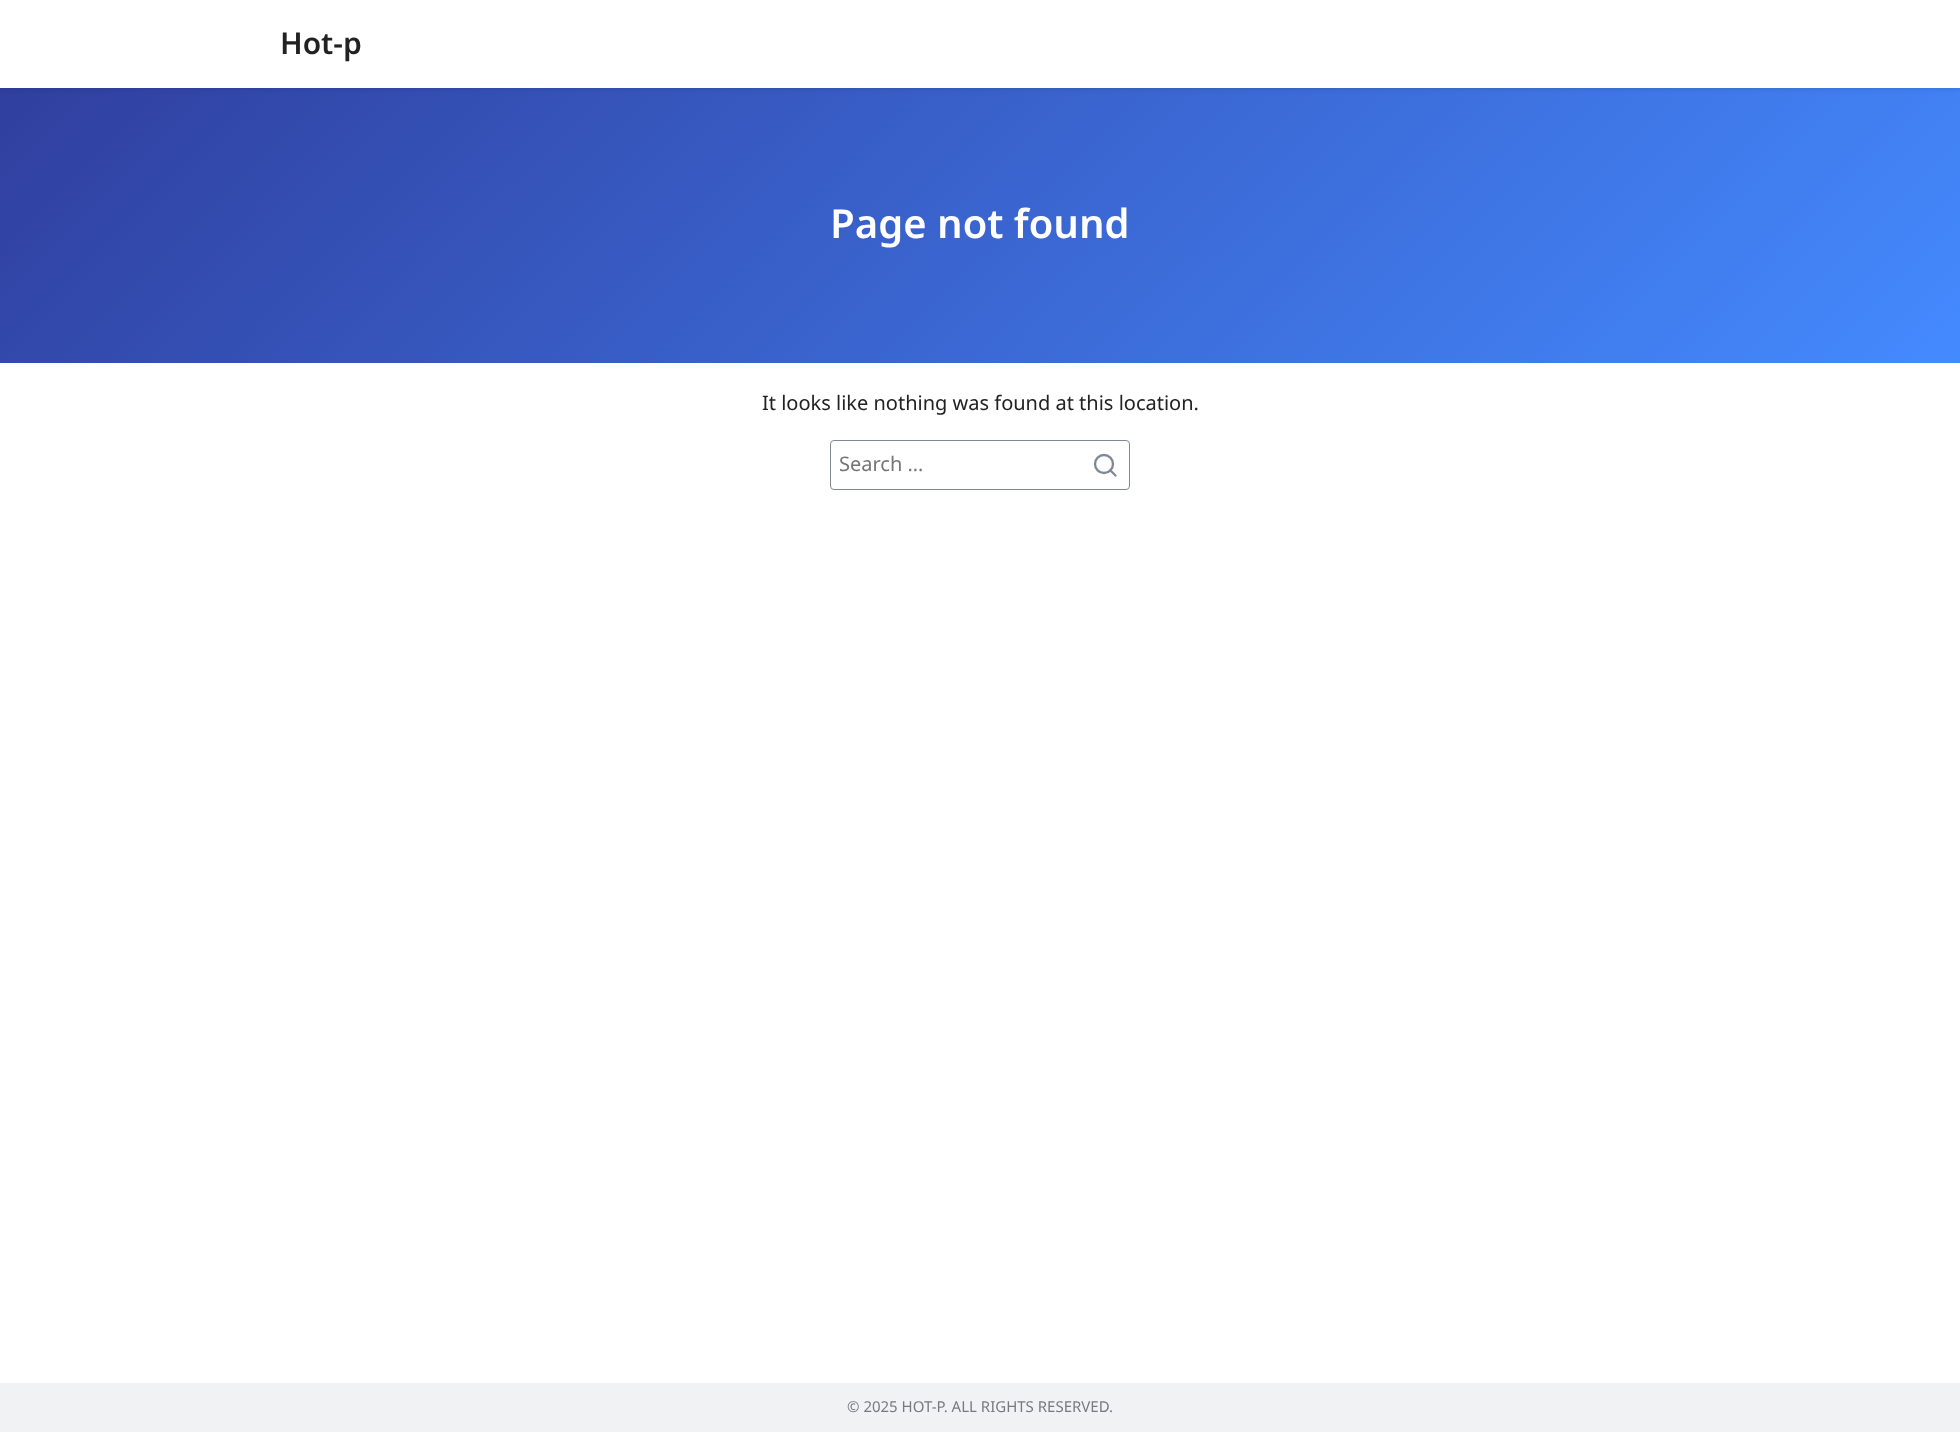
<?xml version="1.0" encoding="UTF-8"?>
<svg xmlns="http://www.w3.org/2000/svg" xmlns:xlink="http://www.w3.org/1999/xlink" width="1960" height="1432">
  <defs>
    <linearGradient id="g1" gradientUnits="userSpaceOnUse" x1="421" y1="-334" x2="1539" y2="784"><stop offset="0" stop-color="#303f9f" /><stop offset="1" stop-color="#448aff" /></linearGradient>
  </defs>
  <rect width="100%" height="100%" fill="#ffffff" />
  <rect y="88" width="1960" height="275" fill="url(#g1)" />
  <rect y="1" width="1960" height="88" fill="#000000" fill-opacity="0.1" filter="blur(2.5px)" />
  <rect width="1960" height="88" fill="#ffffff" />
  <rect x="830.5" y="440.5" width="299" height="49" rx="3.5" fill="none" stroke="#7e8993" />
  <circle cx="1104" cy="464" r="9" fill="none" stroke="#7e8993" stroke-width="2.3" />
  <path d="M 1115.5 475.5 l -5 -5" fill="none" stroke="#7e8993" stroke-width="2.3" stroke-linecap="round" stroke-linejoin="round" />
  <rect y="1383" width="1960" height="49" fill="#f1f2f3" />
  <text x="280" y="54" style="font-family: Noto Sans Thai; font-size: 30px; font-weight: 600; fill: #222222">Hot-p</text>
  <text x="830" y="238" style="font-family: Noto Sans Thai; font-size: 40px; font-weight: 600; fill: #ffffff">Page not found</text>
  <text x="762" y="410" style="font-family: Noto Sans Thai; font-size: 20px; fill: #222222">It looks like nothing was found at this location.</text>
  <text x="839" y="471" style="font-family: Noto Sans Thai; font-size: 20px; fill: #757575">Search …</text>
  <text x="847" y="1412" style="font-family: Noto Sans Thai; font-size: 15px; fill: #787980">© 2025 HOT-P. ALL RIGHTS RESERVED.</text>
</svg>
